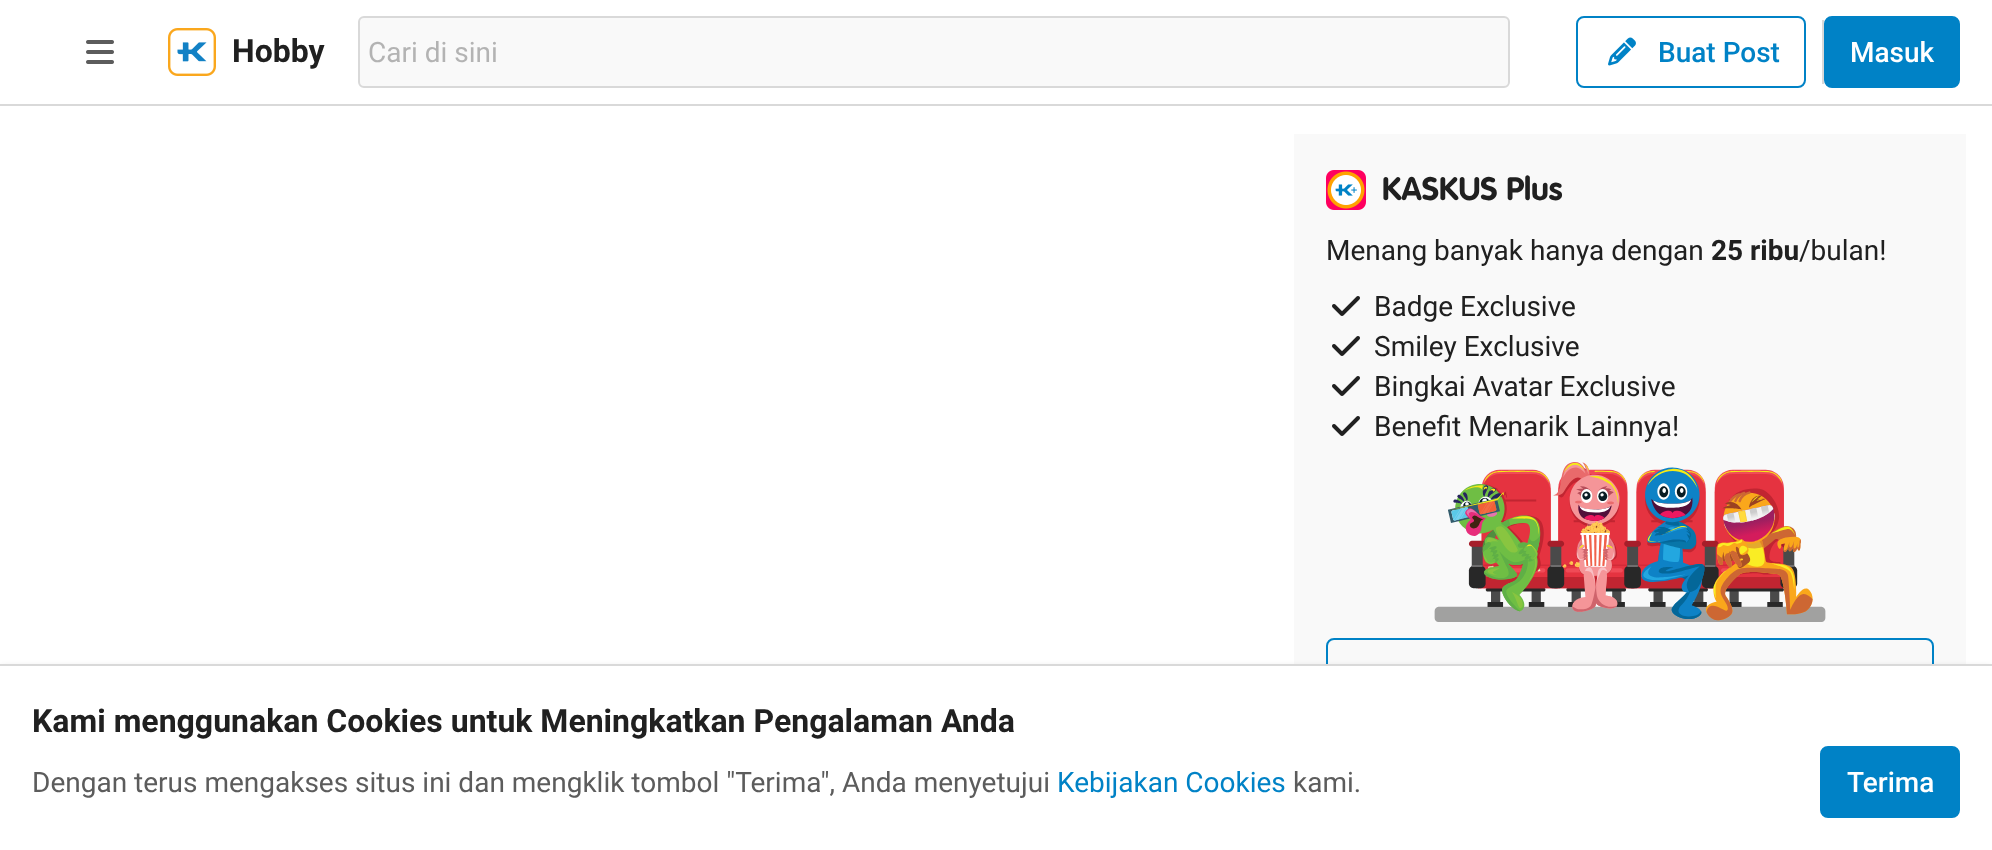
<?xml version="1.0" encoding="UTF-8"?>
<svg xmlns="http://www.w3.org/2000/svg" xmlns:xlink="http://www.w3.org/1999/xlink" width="1992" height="850">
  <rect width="100%" height="100%" fill="#ffffff" />
  <rect y="104" width="1992" height="2" fill="#d9d9d9" />
  <image x="86" y="40" width="28" height="24" xlink:href="image1.png" />
  <image x="168" y="28" width="48" height="48" xlink:href="image2.png" />
  <rect x="359" y="17" width="1150" height="70" rx="5" fill="#f9f9f9" stroke="#d9d9d9" stroke-width="2" />
  <rect x="1577" y="17" width="228" height="70" rx="7" fill="none" stroke="#0082c6" stroke-width="2" />
  <image x="1608" y="37" width="28" height="29" xlink:href="image3.png" />
  <rect x="1822" y="20" width="2" height="64" fill="#d9d9d9" />
  <rect x="1825" y="17" width="134" height="70" rx="7" fill="#0082c6" stroke="#0082c6" stroke-width="2" />
  <rect x="1294" y="134" width="672" height="530" fill="#f9f9f9" />
  <image x="1326" y="170" width="40" height="40" xlink:href="image4.png" />
  <image x="1332" y="296" width="28" height="20" xlink:href="image5.png" />
  <image x="1332" y="336" width="28" height="20" xlink:href="image5.png" />
  <image x="1332" y="376" width="28" height="20" xlink:href="image5.png" />
  <image x="1332" y="416" width="28" height="20" xlink:href="image5.png" />
  <image x="1434" y="462" width="392" height="160" xlink:href="image6.png" />
  <rect x="1327" y="639" width="606" height="70" rx="7" fill="none" stroke="#0082c6" stroke-width="2" />
  <rect y="666" width="1992" height="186" fill="#000000" fill-opacity="0.1" filter="blur(3px)" />
  <rect y="666" width="1992" height="184" fill="#ffffff" />
  <rect y="664" width="1992" height="2" fill="#d9d9d9" />
  <rect x="1821" y="747" width="138" height="70" rx="7" fill="#0082c6" stroke="#0082c6" stroke-width="2" />
  <text x="232" y="62" style="font-family: Roboto; font-size: 32px; font-weight: bold; fill: #202020">Hobby</text>
  <text x="368" y="62" style="font-family: Roboto; font-size: 28px; fill: #b3b3b3">Cari di sini</text>
  <text x="1658" y="62" style="font-family: Roboto; font-size: 28px; font-weight: 500; fill: #0082c6">Buat Post</text>
  <text x="1850" y="62" style="font-family: Roboto; font-size: 28px; font-weight: 500; fill: #ffffff">Masuk</text>
  <text x="1382" y="200" style="font-family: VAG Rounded; font-size: 32px; font-weight: bold; fill: #202020">KASKUS Plus</text>
  <text x="1326" y="260" style="font-family: Roboto; font-size: 28px; fill: #202020">Menang banyak hanya dengan</text>
  <text x="1711" y="260" style="font-family: Roboto; font-size: 28px; font-weight: bold; fill: #202020">25 ribu</text>
  <text x="1799" y="260" style="font-family: Roboto; font-size: 28px; fill: #202020">/bulan!</text>
  <text x="1374" y="316" style="font-family: Roboto; font-size: 28px; fill: #202020">Badge Exclusive</text>
  <text x="1374" y="356" style="font-family: Roboto; font-size: 28px; fill: #202020">Smiley Exclusive</text>
  <text x="1374" y="396" style="font-family: Roboto; font-size: 28px; fill: #202020">Bingkai Avatar Exclusive</text>
  <text x="1374" y="436" style="font-family: Roboto; font-size: 28px; fill: #202020">Benefit Menarik Lainnya!</text>
  <text x="32" y="732" style="font-family: Roboto; font-size: 32px; font-weight: bold; fill: #202020">Kami menggunakan Cookies untuk Meningkatkan Pengalaman Anda</text>
  <text x="32" y="792" style="font-family: Roboto; font-size: 28px; fill: #5c5c5c">Dengan terus mengakses situs ini dan mengklik tombol "Terima", Anda menyetujui</text>
  <text x="1057" y="792" style="font-family: Roboto; font-size: 28px; fill: #0082c6">Kebijakan Cookies</text>
  <text x="1293" y="792" style="font-family: Roboto; font-size: 28px; fill: #5c5c5c">kami.</text>
  <text x="1847" y="792" style="font-family: Roboto; font-size: 28px; font-weight: 500; fill: #ffffff">Terima</text>
</svg>
